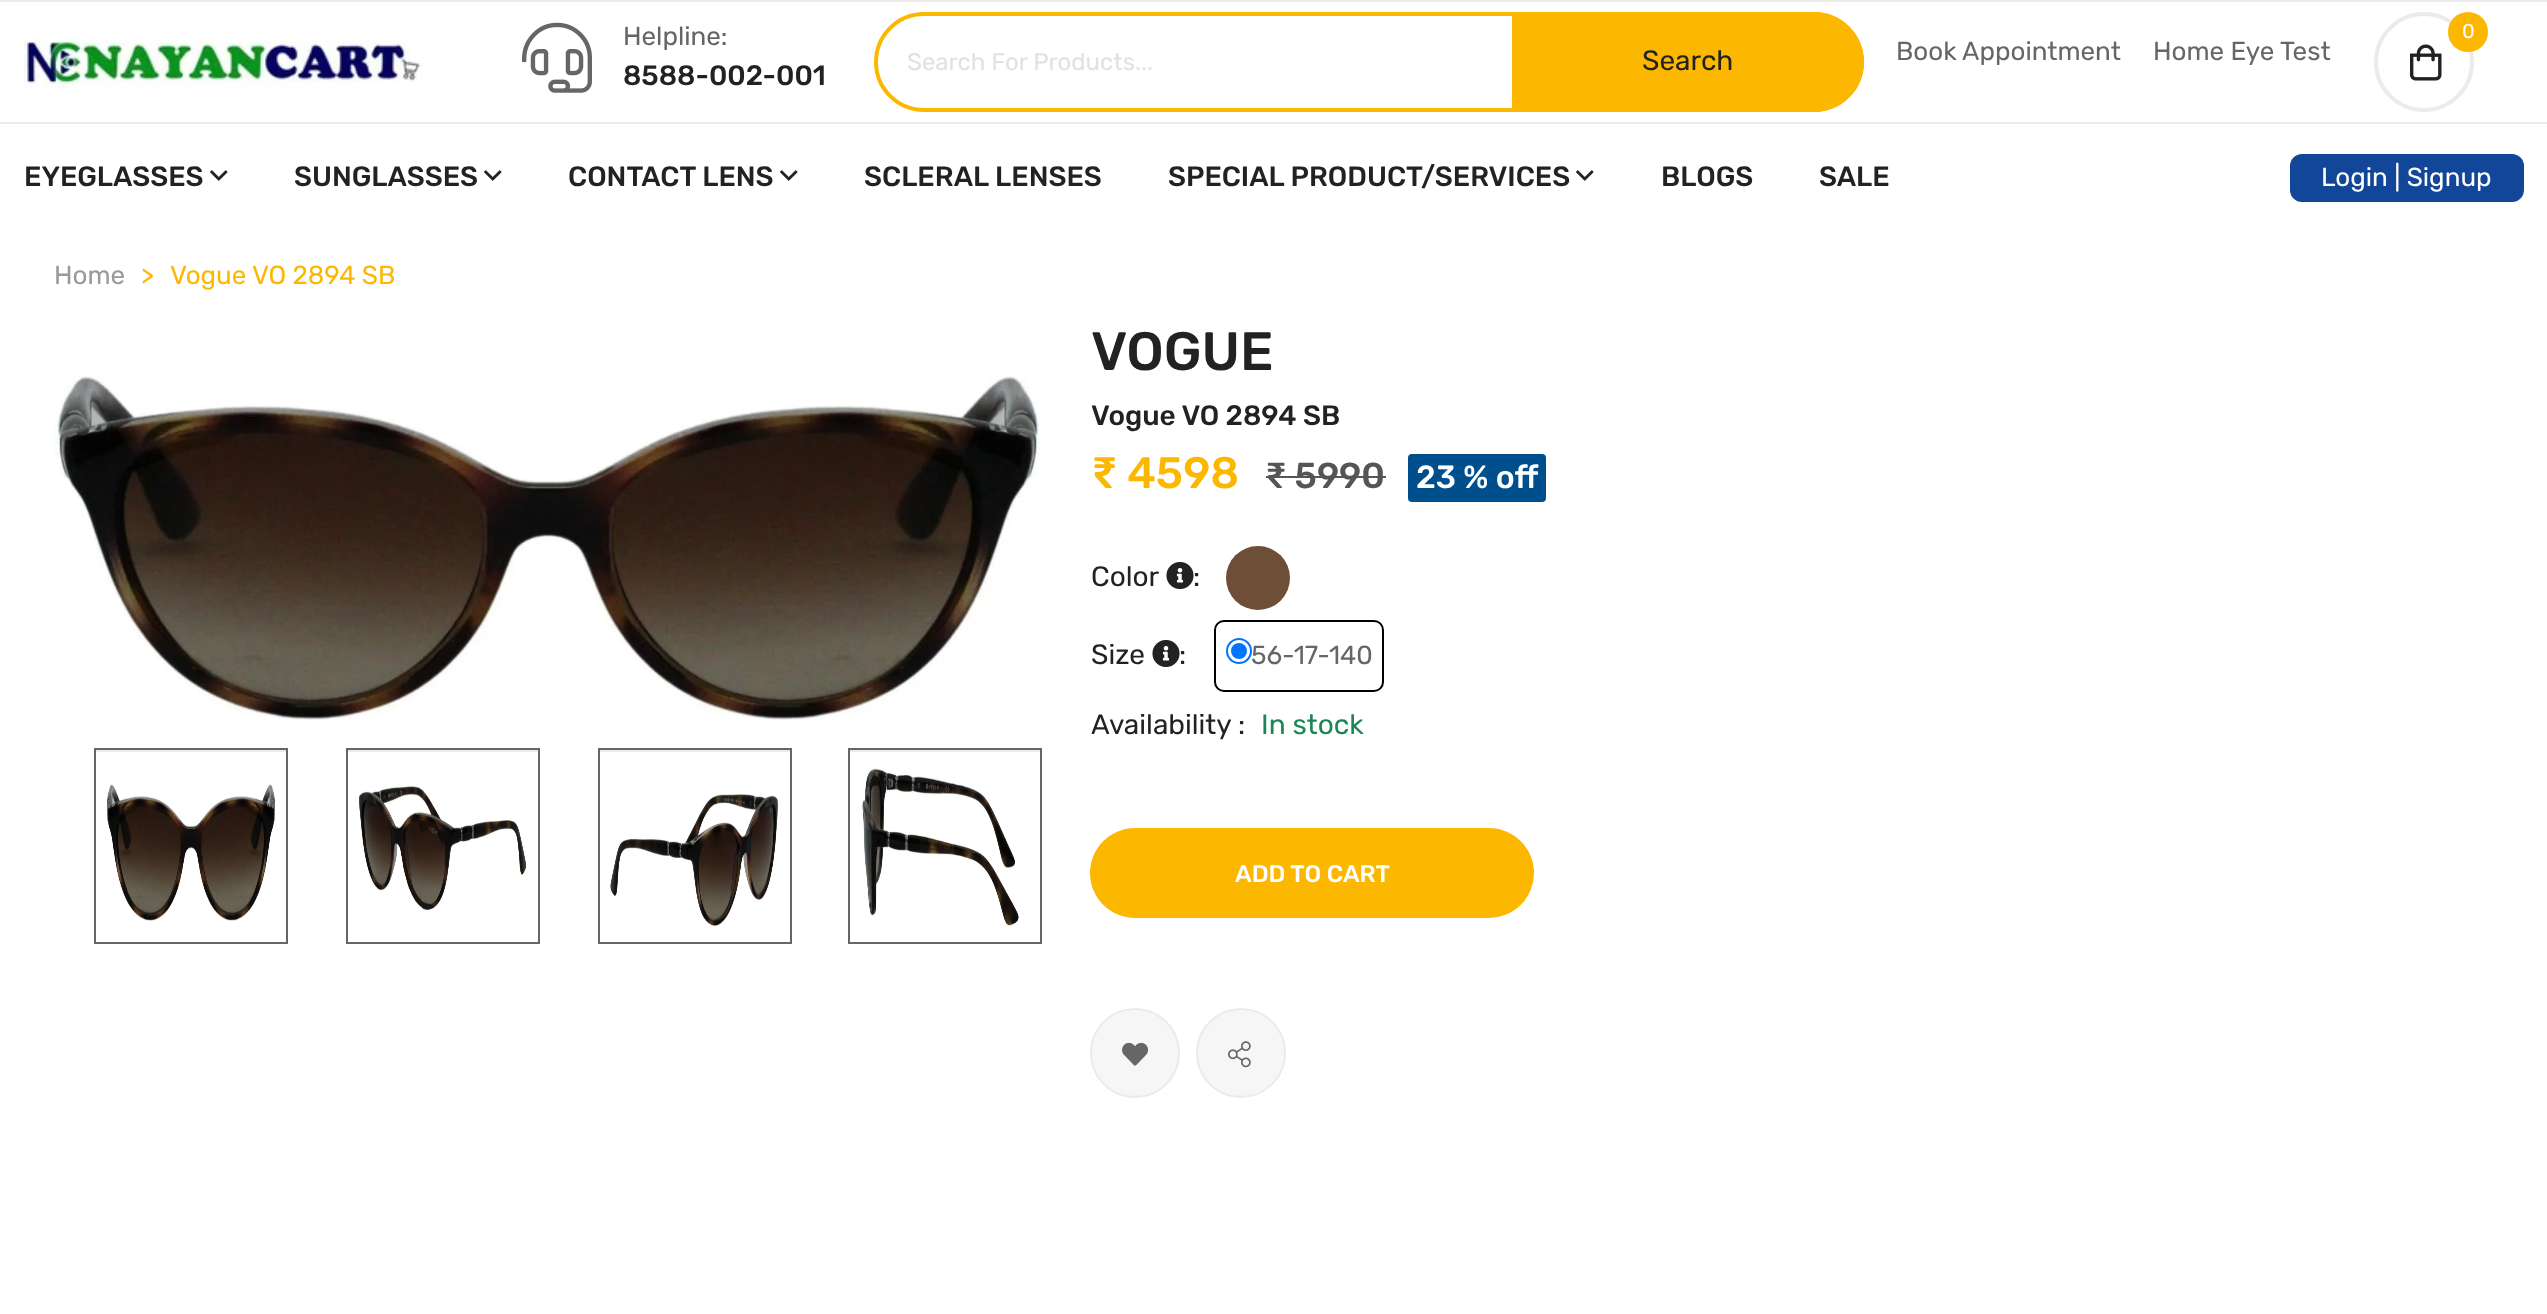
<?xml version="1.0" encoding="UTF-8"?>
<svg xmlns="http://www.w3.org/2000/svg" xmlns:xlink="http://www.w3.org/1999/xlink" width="2547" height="1314">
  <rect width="100%" height="100%" fill="#ffffff" />
  <rect width="2547" height="2" fill="#ebebeb" />
  <rect y="122" width="2547" height="2" fill="#ebebeb" />
  <image x="24" y="38" width="399" height="50" xlink:href="image1.png" />
  <image x="522" y="22" width="70" height="71" xlink:href="image2.png" />
  <circle cx="2424" cy="62" r="48" fill="none" stroke="#ebebeb" stroke-width="4" />
  <circle cx="2468" cy="32" r="20" fill="#fcb700" />
  <image x="2410" y="44" width="32" height="37" xlink:href="image3.png" />
  <rect x="876" y="14" width="986" height="96" rx="48" fill="none" stroke="#fcb700" stroke-width="4" />
  <path d="M 1512 12 h 302 c 27.5 0 50 22.5 50 50 c 0 27.5 -22.5 50 -50 50 h -302 z" fill="#fcb700" />
  <image x="210" y="170" width="18" height="11" xlink:href="image4.png" />
  <image x="484" y="170" width="18" height="11" xlink:href="image4.png" />
  <image x="780" y="170" width="18" height="11" xlink:href="image4.png" />
  <image x="1576" y="170" width="18" height="11" xlink:href="image4.png" />
  <rect x="2290" y="154" width="234" height="48" rx="12" fill="#114699" />
  <image x="54" y="376" width="986" height="344" xlink:href="image5.png" />
  <rect x="95" y="749" width="192" height="194" fill="none" stroke="#666666" stroke-width="2" />
  <rect x="96" y="750" width="190" height="2" fill="#ebebeb" />
  <image x="106" y="784" width="170" height="137" xlink:href="image6.png" />
  <rect x="347" y="749" width="192" height="194" fill="none" stroke="#666666" stroke-width="2" />
  <rect x="348" y="750" width="190" height="2" fill="#ebebeb" />
  <image x="359" y="786" width="168" height="126" xlink:href="image7.png" />
  <rect x="599" y="749" width="192" height="194" fill="none" stroke="#666666" stroke-width="2" />
  <rect x="600" y="750" width="190" height="2" fill="#ebebeb" />
  <image x="610" y="794" width="168" height="133" xlink:href="image8.png" />
  <rect x="849" y="749" width="192" height="194" fill="none" stroke="#666666" stroke-width="2" />
  <rect x="850" y="750" width="190" height="2" fill="#ebebeb" />
  <image x="862" y="768" width="157" height="158" xlink:href="image9.png" />
  <rect x="1266" y="476" width="120" height="2" fill="#555555" />
  <rect x="1408" y="454" width="138" height="48" rx="4" fill="#004f8d" />
  <image x="1166" y="562" width="28" height="27" xlink:href="image10.png" />
  <circle cx="1258" cy="578" r="32" fill="#6f4e37" />
  <image x="1152" y="640" width="28" height="27" xlink:href="image10.png" />
  <rect x="1215" y="621" width="168" height="70" rx="9" fill="none" stroke="#000000" stroke-width="2" />
  <circle cx="1239" cy="651" r="12" fill="none" stroke="#0075ff" stroke-width="2" />
  <circle cx="1239" cy="651" r="8" fill="#0075ff" />
  <rect x="1090" y="828" width="444" height="90" rx="45" fill="#fcb700" />
  <circle cx="1135" cy="1053" r="44" fill="#f6f6f6" stroke="#ebebeb" stroke-width="2" />
  <image x="1122" y="1042" width="26" height="24" xlink:href="image11.png" />
  <circle cx="1241" cy="1053" r="44" fill="#f6f6f6" stroke="#ebebeb" stroke-width="2" />
  <image x="1228" y="1041" width="23" height="27" xlink:href="image12.png" />
  <text x="623" y="45" style="font-family: Rubik; font-size: 26px; fill: #666666">Helpline:</text>
  <text x="623" y="85" style="font-family: Rubik; font-size: 28px; font-weight: 500; fill: #222222">8588-002-001</text>
  <text x="2462" y="38" style="font-family: Rubik; font-size: 20px; fill: #ffffff">0</text>
  <text x="907" y="70" style="font-family: Rubik; font-size: 24px; fill: #e1e1e1">Search For Products...</text>
  <text x="1642" y="70" style="font-family: Rubik; font-size: 28px; fill: #222222">Search</text>
  <text x="1896" y="60" style="font-family: Rubik; font-size: 26px; fill: #666666">Book Appointment</text>
  <text x="2153" y="60" style="font-family: Rubik; font-size: 26px; fill: #666666">Home Eye Test</text>
  <text x="24" y="186" style="font-family: Rubik; font-size: 28px; font-weight: 500; fill: #222222">EYEGLASSES</text>
  <text x="294" y="186" style="font-family: Rubik; font-size: 28px; font-weight: 500; fill: #222222">SUNGLASSES</text>
  <text x="568" y="186" style="font-family: Rubik; font-size: 28px; font-weight: 500; fill: #222222">CONTACT LENS</text>
  <text x="864" y="186" style="font-family: Rubik; font-size: 28px; font-weight: 500; fill: #222222">SCLERAL LENSES</text>
  <text x="1168" y="186" style="font-family: Rubik; font-size: 28px; font-weight: 500; fill: #222222">SPECIAL PRODUCT/SERVICES</text>
  <text x="1661" y="186" style="font-family: Rubik; font-size: 28px; font-weight: 500; fill: #222222">BLOGS</text>
  <text x="1819" y="186" style="font-family: Rubik; font-size: 28px; font-weight: 500; fill: #222222">SALE</text>
  <text x="2321" y="186" style="font-family: Rubik; font-size: 26px; fill: #ffffff">Login | Signup</text>
  <text x="54" y="284" style="font-family: Rubik; font-size: 26px; fill: #999999">Home</text>
  <text x="141" y="284" style="font-family: Rubik; font-size: 26px; fill: #fcb700">&gt;</text>
  <text x="170" y="284" style="font-family: Rubik; font-size: 26px; fill: #fcb700">Vogue VO 2894 SB</text>
  <text x="1091" y="370" style="font-family: Rubik; font-size: 54px; font-weight: 500; fill: #222222">VOGUE</text>
  <text x="1091" y="425" style="font-family: Rubik; font-size: 28px; font-weight: 500; fill: #222222">Vogue VO 2894 SB</text>
  <text x="1091" y="488" style="font-family: Rubik; font-size: 44px; font-weight: 500; fill: #fcb700">₹ 4598</text>
  <text x="1265" y="488" style="font-family: Rubik; font-size: 36px; font-weight: 500; fill: #555555">₹ 5990</text>
  <text x="1416" y="488" style="font-family: Rubik; font-size: 32px; font-weight: 500; fill: #ffffff">23 % off</text>
  <text x="1091" y="586" style="font-family: Rubik; font-size: 28px; fill: #222222">Color</text>
  <text x="1193" y="586" style="font-family: Rubik; font-size: 28px; fill: #222222">:</text>
  <text x="1091" y="664" style="font-family: Rubik; font-size: 28px; fill: #222222">Size</text>
  <text x="1179" y="664" style="font-family: Rubik; font-size: 28px; fill: #222222">:</text>
  <text x="1251" y="664" style="font-family: Rubik; font-size: 26px; fill: #666666">56-17-140</text>
  <text x="1091" y="734" style="font-family: Rubik; font-size: 28px; fill: #222222">Availability :</text>
  <text x="1261" y="734" style="font-family: Rubik; font-size: 28px; fill: #198754">In stock</text>
  <text x="1235" y="882" style="font-family: Rubik; font-size: 24px; font-weight: 500; fill: #ffffff">ADD TO CART</text>
</svg>
